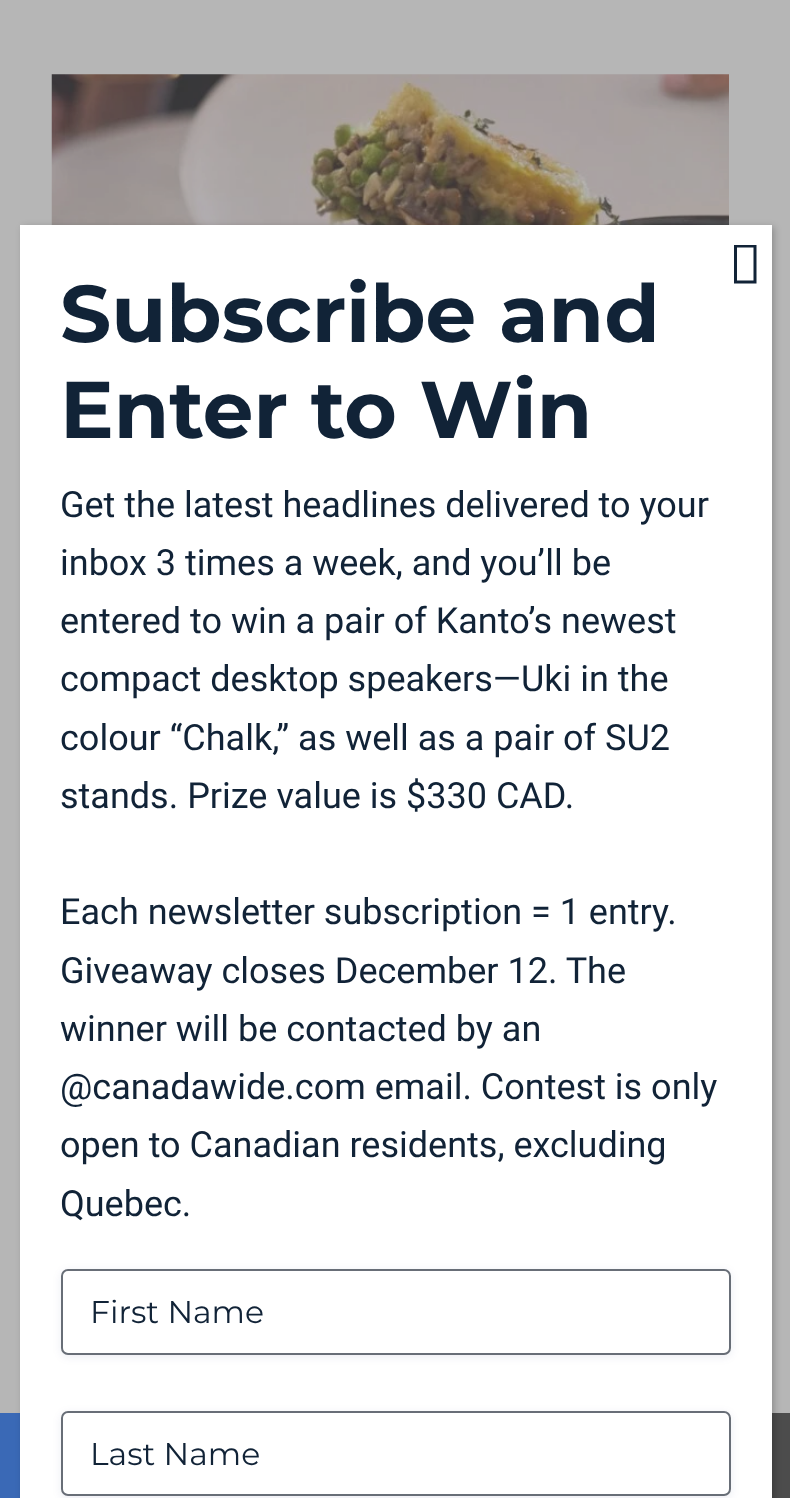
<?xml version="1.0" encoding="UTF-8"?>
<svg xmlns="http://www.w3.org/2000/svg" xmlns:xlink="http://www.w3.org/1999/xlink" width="790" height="1498">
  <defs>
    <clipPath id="clip1"><path d="M 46 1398 h 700 v 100 h -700 z m 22 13 h 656 c 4 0 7 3 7 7 v 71 c 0 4 -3 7 -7 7 h -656 c -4 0 -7 -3 -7 -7 v -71 c 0 -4 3 -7 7 -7 z" clip-rule="evenodd" /></clipPath>
  </defs>
  <rect width="100%" height="100%" fill="#b6b6b6" />
  <image x="51" y="74" width="678" height="151" xlink:href="image1.png" />
  <rect y="1413" width="20" height="85" fill="#3a69b6" />
  <rect x="772" y="1413" width="18" height="85" fill="#4c4c4c" />
  <rect x="23" y="227" width="751" height="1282" fill="#020202" fill-opacity="0.23" filter="blur(3.5px)" />
  <rect x="20" y="225" width="752" height="1273" fill="#ffffff" />
  <path d="M 734 283.5 v -38.5 h 22.5 v 38.5 z m 3 -3 h 16.5 v -33 h -16.5 z" fill="#112337" />
  <rect x="61" y="1271" width="670" height="86" rx="7" fill="#121961" fill-opacity="0.08" filter="blur(4.5px)" />
  <rect x="62" y="1270" width="668" height="84" rx="6" fill="#ffffff" stroke="#686e77" stroke-width="2" />
  <g clip-path="url(#clip1)">
    <rect x="61" y="1413" width="670" height="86" rx="7" fill="#121961" fill-opacity="0.08" filter="blur(4.5px)" />
  </g>
  <rect x="62" y="1412" width="668" height="83" rx="6" fill="none" stroke="#686e77" stroke-width="2" />
  <text x="60" y="342" style="font-family: Montserrat; font-size: 80.25px; font-weight: bold; fill: #112337">Subscribe and</text>
  <text x="60" y="438" style="font-family: Montserrat; font-size: 80.25px; font-weight: bold; fill: #112337">Enter to Win</text>
  <text x="60" y="517" style="font-family: Roboto; font-size: 36px; fill: #112337">Get the latest headlines delivered to your</text>
  <text x="60" y="575" style="font-family: Roboto; font-size: 36px; fill: #112337">inbox 3 times a week, and you’ll be</text>
  <text x="60" y="633" style="font-family: Roboto; font-size: 36px; fill: #112337">entered to win a pair of Kanto’s newest</text>
  <text x="60" y="691" style="font-family: Roboto; font-size: 36px; fill: #112337">compact desktop speakers—Uki in the</text>
  <text x="60" y="750" style="font-family: Roboto; font-size: 36px; fill: #112337">colour “Chalk,” as well as a pair of SU2</text>
  <text x="60" y="808" style="font-family: Roboto; font-size: 36px; fill: #112337">stands. Prize value is $330 CAD.</text>
  <text x="60" y="924" style="font-family: Roboto; font-size: 36px; fill: #112337">Each newsletter subscription = 1 entry.</text>
  <text x="60" y="983" style="font-family: Roboto; font-size: 36px; fill: #112337">Giveaway closes December 12. The</text>
  <text x="60" y="1041" style="font-family: Roboto; font-size: 36px; fill: #112337">winner will be contacted by an</text>
  <text x="60" y="1099" style="font-family: Roboto; font-size: 36px; fill: #112337">@canadawide.com email. Contest is only</text>
  <text x="60" y="1157" style="font-family: Roboto; font-size: 36px; fill: #112337">open to Canadian residents, excluding</text>
  <text x="60" y="1216" style="font-family: Roboto; font-size: 36px; fill: #112337">Quebec.</text>
  <text x="90" y="1323" style="font-family: Montserrat; font-size: 31.5px; fill: #112337">First Name</text>
  <text x="90" y="1465" style="font-family: Montserrat; font-size: 31.5px; fill: #112337">Last Name</text>
</svg>
